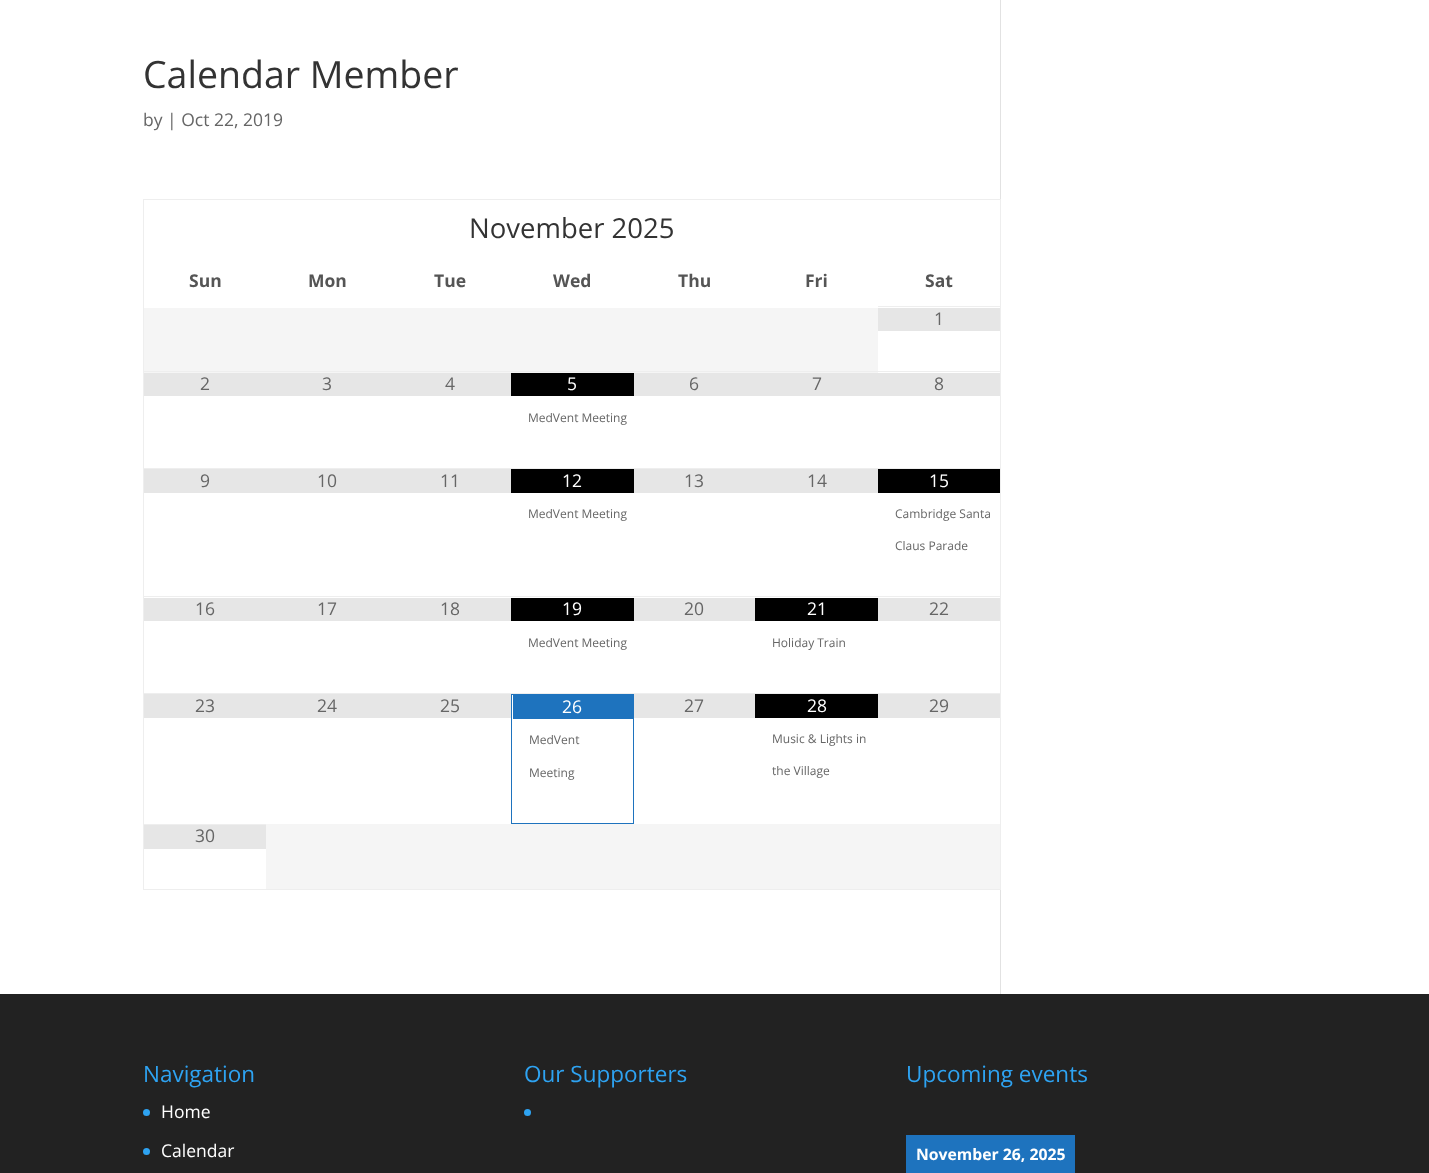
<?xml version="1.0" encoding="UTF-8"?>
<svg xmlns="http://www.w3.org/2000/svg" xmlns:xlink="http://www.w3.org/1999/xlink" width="1429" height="1173">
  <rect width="100%" height="100%" fill="#ffffff" />
  <rect x="1000" width="1" height="994" fill="#e2e2e2" />
  <rect x="143" y="199" width="858" height="1" fill="#eeeeee" />
  <rect x="1000" y="199" width="1" height="691" fill="#eeeeee" />
  <rect x="143" y="889" width="858" height="1" fill="#eeeeee" />
  <rect x="143" y="199" width="1" height="691" fill="#eeeeee" />
  <rect x="144" y="308" width="734" height="65" fill="#f5f5f5" />
  <rect x="878" y="306" width="123" height="1" fill="#eeeeee" />
  <rect x="878" y="308" width="122" height="23" fill="#e6e6e6" />
  <rect x="144" y="373" width="367" height="23" fill="#e6e6e6" />
  <rect x="511" y="373" width="123" height="23" fill="#000000" />
  <rect x="634" y="373" width="366" height="23" fill="#e6e6e6" />
  <rect x="143" y="371" width="858" height="1" fill="#eeeeee" />
  <rect x="144" y="469" width="367" height="24" fill="#e6e6e6" />
  <rect x="511" y="469" width="123" height="24" fill="#000000" />
  <rect x="634" y="469" width="244" height="24" fill="#e6e6e6" />
  <rect x="143" y="468" width="858" height="1" fill="#eeeeee" />
  <rect x="878" y="469" width="122" height="24" fill="#000000" />
  <rect x="144" y="598" width="367" height="23" fill="#e6e6e6" />
  <rect x="511" y="598" width="123" height="23" fill="#000000" />
  <rect x="634" y="598" width="121" height="23" fill="#e6e6e6" />
  <rect x="755" y="598" width="123" height="23" fill="#000000" />
  <rect x="143" y="596" width="858" height="1" fill="#eeeeee" />
  <rect x="878" y="598" width="122" height="23" fill="#e6e6e6" />
  <rect x="144" y="694" width="367" height="24" fill="#e6e6e6" />
  <rect x="511.5" y="694.5" width="122" height="129" fill="none" stroke="#1e73be" />
  <rect x="513" y="695" width="120" height="24" fill="#1e73be" />
  <rect x="634" y="694" width="121" height="24" fill="#e6e6e6" />
  <rect x="755" y="694" width="123" height="24" fill="#000000" />
  <rect x="143" y="693" width="858" height="1" fill="#eeeeee" />
  <rect x="878" y="694" width="122" height="24" fill="#e6e6e6" />
  <rect x="143" y="824" width="123" height="1" fill="#eeeeee" />
  <rect x="144" y="825" width="122" height="24" fill="#e6e6e6" />
  <rect x="266" y="824" width="734" height="65" fill="#f5f5f5" />
  <rect y="994" width="1429" height="179" fill="#222222" />
  <circle cx="146.5" cy="1112.5" r="3.5" fill="#2ea3f2" />
  <circle cx="146.5" cy="1151.5" r="3.5" fill="#2ea3f2" />
  <circle cx="527.5" cy="1112.5" r="3.5" fill="#2ea3f2" />
  <rect x="906" y="1135" width="169" height="38" fill="#1e73be" />
  <text x="143" y="88" style="font-family: Open Sans; font-size: 37.5px; fill: #333333">Calendar Member</text>
  <text x="143" y="126" style="font-family: Open Sans; font-size: 17.5px; fill: #666666">by | Oct 22, 2019</text>
  <text x="469" y="238" style="font-family: Open Sans; font-size: 27.5px; fill: #333333">November 2025</text>
  <text x="189" y="287" style="font-family: Open Sans; font-size: 17.5px; font-weight: bold; fill: #555555">Sun</text>
  <text x="308" y="287" style="font-family: Open Sans; font-size: 17.5px; font-weight: bold; fill: #555555">Mon</text>
  <text x="434" y="287" style="font-family: Open Sans; font-size: 17.5px; font-weight: bold; fill: #555555">Tue</text>
  <text x="553" y="287" style="font-family: Open Sans; font-size: 17.5px; font-weight: bold; fill: #555555">Wed</text>
  <text x="678" y="287" style="font-family: Open Sans; font-size: 17.5px; font-weight: bold; fill: #555555">Thu</text>
  <text x="805" y="287" style="font-family: Open Sans; font-size: 17.5px; font-weight: bold; fill: #555555">Fri</text>
  <text x="925" y="287" style="font-family: Open Sans; font-size: 17.5px; font-weight: bold; fill: #555555">Sat</text>
  <text x="934" y="325" style="font-family: Open Sans; font-size: 17.5px; fill: #666666">1</text>
  <text x="200" y="390" style="font-family: Open Sans; font-size: 17.5px; fill: #666666">2</text>
  <text x="322" y="390" style="font-family: Open Sans; font-size: 17.5px; fill: #666666">3</text>
  <text x="445" y="390" style="font-family: Open Sans; font-size: 17.5px; fill: #666666">4</text>
  <text x="567" y="390" style="font-family: Open Sans; font-size: 17.5px; fill: #ffffff">5</text>
  <text x="528" y="422" style="font-family: Open Sans; font-size: 12px; fill: #666666">MedVent Meeting</text>
  <text x="689" y="390" style="font-family: Open Sans; font-size: 17.5px; fill: #666666">6</text>
  <text x="812" y="390" style="font-family: Open Sans; font-size: 17.5px; fill: #666666">7</text>
  <text x="934" y="390" style="font-family: Open Sans; font-size: 17.5px; fill: #666666">8</text>
  <text x="200" y="487" style="font-family: Open Sans; font-size: 17.5px; fill: #666666">9</text>
  <text x="317" y="487" style="font-family: Open Sans; font-size: 17.5px; fill: #666666">10</text>
  <text x="440" y="487" style="font-family: Open Sans; font-size: 17.5px; fill: #666666">11</text>
  <text x="562" y="487" style="font-family: Open Sans; font-size: 17.5px; fill: #ffffff">12</text>
  <text x="528" y="518" style="font-family: Open Sans; font-size: 12px; fill: #666666">MedVent Meeting</text>
  <text x="684" y="487" style="font-family: Open Sans; font-size: 17.5px; fill: #666666">13</text>
  <text x="807" y="487" style="font-family: Open Sans; font-size: 17.5px; fill: #666666">14</text>
  <text x="929" y="487" style="font-family: Open Sans; font-size: 17.5px; fill: #ffffff">15</text>
  <text x="895" y="518" style="font-family: Open Sans; font-size: 12px; fill: #666666">Cambridge Santa</text>
  <text x="895" y="550" style="font-family: Open Sans; font-size: 12px; fill: #666666">Claus Parade</text>
  <text x="195" y="615" style="font-family: Open Sans; font-size: 17.5px; fill: #666666">16</text>
  <text x="317" y="615" style="font-family: Open Sans; font-size: 17.5px; fill: #666666">17</text>
  <text x="440" y="615" style="font-family: Open Sans; font-size: 17.5px; fill: #666666">18</text>
  <text x="562" y="615" style="font-family: Open Sans; font-size: 17.5px; fill: #ffffff">19</text>
  <text x="528" y="647" style="font-family: Open Sans; font-size: 12px; fill: #666666">MedVent Meeting</text>
  <text x="684" y="615" style="font-family: Open Sans; font-size: 17.5px; fill: #666666">20</text>
  <text x="807" y="615" style="font-family: Open Sans; font-size: 17.5px; fill: #ffffff">21</text>
  <text x="772" y="647" style="font-family: Open Sans; font-size: 12px; fill: #666666">Holiday Train</text>
  <text x="929" y="615" style="font-family: Open Sans; font-size: 17.5px; fill: #666666">22</text>
  <text x="195" y="712" style="font-family: Open Sans; font-size: 17.5px; fill: #666666">23</text>
  <text x="317" y="712" style="font-family: Open Sans; font-size: 17.5px; fill: #666666">24</text>
  <text x="440" y="712" style="font-family: Open Sans; font-size: 17.5px; fill: #666666">25</text>
  <text x="562" y="713" style="font-family: Open Sans; font-size: 17.5px; fill: #ffffff">26</text>
  <text x="529" y="744" style="font-family: Open Sans; font-size: 12px; fill: #666666">MedVent</text>
  <text x="529" y="777" style="font-family: Open Sans; font-size: 12px; fill: #666666">Meeting</text>
  <text x="684" y="712" style="font-family: Open Sans; font-size: 17.5px; fill: #666666">27</text>
  <text x="807" y="712" style="font-family: Open Sans; font-size: 17.5px; fill: #ffffff">28</text>
  <text x="772" y="743" style="font-family: Open Sans; font-size: 12px; fill: #666666">Music &amp; Lights in</text>
  <text x="772" y="775" style="font-family: Open Sans; font-size: 12px; fill: #666666">the Village</text>
  <text x="929" y="712" style="font-family: Open Sans; font-size: 17.5px; fill: #666666">29</text>
  <text x="195" y="842" style="font-family: Open Sans; font-size: 17.5px; fill: #666666">30</text>
  <text x="143" y="1082" style="font-family: Open Sans; font-size: 22.5px; fill: #2ea3f2">Navigation</text>
  <text x="161" y="1118" style="font-family: Open Sans; font-size: 17.5px; fill: #ffffff">Home</text>
  <text x="161" y="1157" style="font-family: Open Sans; font-size: 17.5px; fill: #ffffff">Calendar</text>
  <text x="524" y="1082" style="font-family: Open Sans; font-size: 22.5px; fill: #2ea3f2">Our Supporters</text>
  <text x="906" y="1082" style="font-family: Open Sans; font-size: 22.5px; fill: #2ea3f2">Upcoming events</text>
  <text x="916" y="1160" style="font-family: Open Sans; font-size: 15.75px; font-weight: bold; fill: #ffffff">November 26, 2025</text>
</svg>
